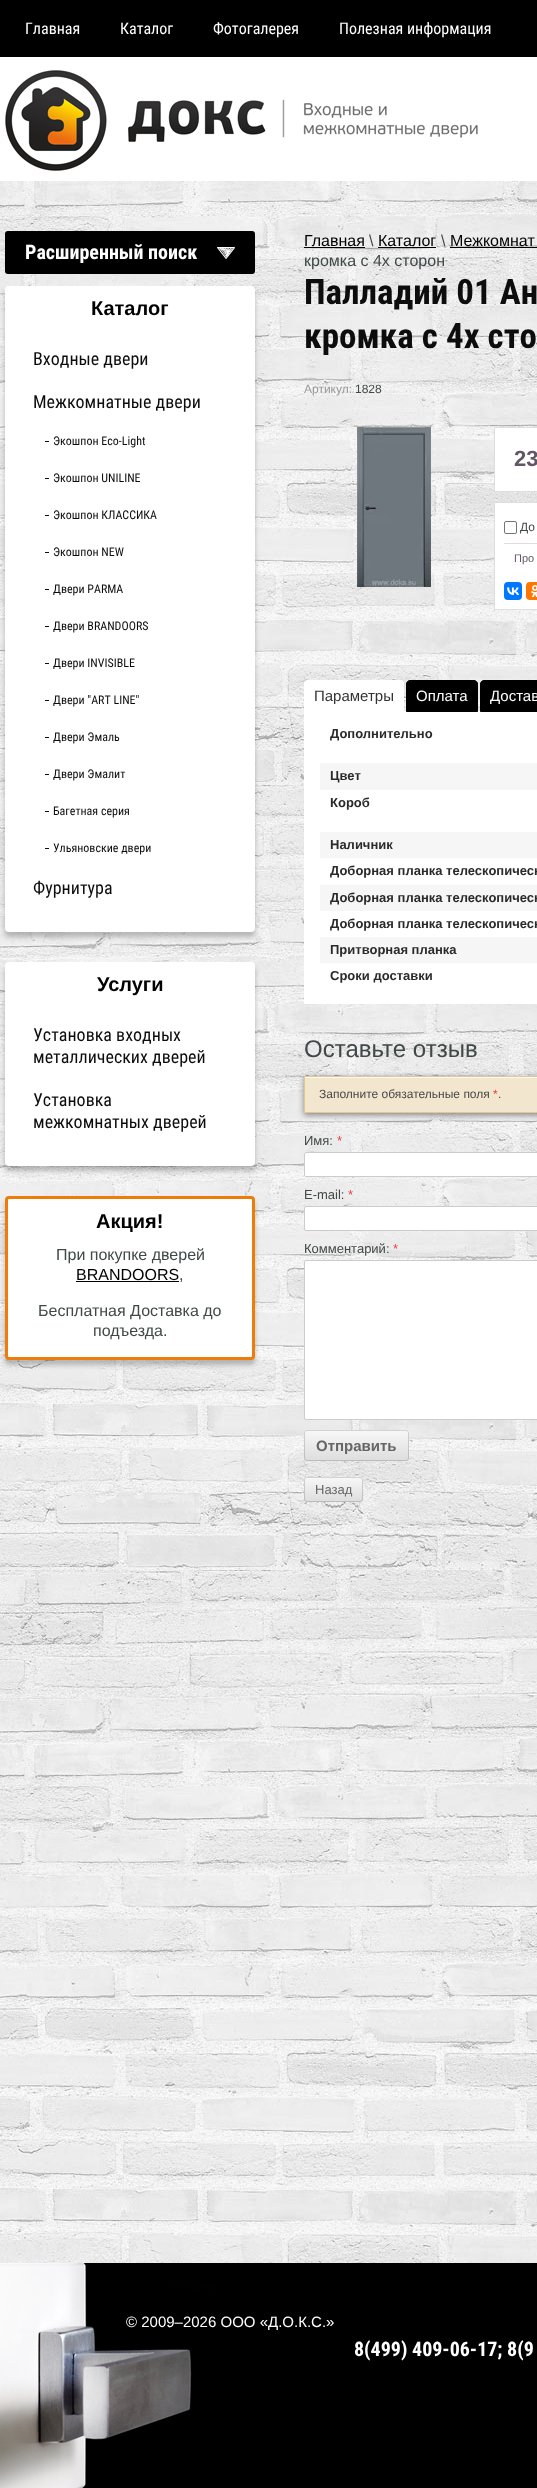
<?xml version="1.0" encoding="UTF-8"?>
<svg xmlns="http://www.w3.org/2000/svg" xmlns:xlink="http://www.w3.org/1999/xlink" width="537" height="2488">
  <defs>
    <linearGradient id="g1" gradientUnits="userSpaceOnUse" x1="357" y1="1430" x2="357" y2="1461"><stop offset="0" stop-color="#f8f8f8" /><stop offset="1" stop-color="#dddddd" /></linearGradient>
    <linearGradient id="g2" gradientUnits="userSpaceOnUse" x1="334" y1="1477" x2="334" y2="1502"><stop offset="0" stop-color="#f8f8f8" /><stop offset="1" stop-color="#dddddd" /></linearGradient>
  </defs>
  <rect width="100%" height="100%" fill="#ffffff" />
  <image x="0" y="181" width="537" height="2082" xlink:href="image1.png" />
  <rect width="537" height="57" fill="#000000" />
  <image x="5" y="70" width="473" height="101" xlink:href="image2.png" />
  <rect x="5" y="231" width="250" height="43" rx="3" fill="#000000" />
  <image x="217" y="247" width="18" height="12" xlink:href="image3.png" />
  <rect x="5" y="291" width="250" height="646" rx="4" fill="#000000" fill-opacity="0.23" filter="blur(2.5px)" />
  <rect x="5" y="286" width="250" height="646" rx="4" fill="#ffffff" />
  <rect x="45" y="441" width="4" height="1" fill="#0d0d0d" />
  <rect x="45" y="478" width="4" height="1" fill="#0d0d0d" />
  <rect x="45" y="515" width="4" height="1" fill="#0d0d0d" />
  <rect x="45" y="552" width="4" height="1" fill="#0d0d0d" />
  <rect x="45" y="589" width="4" height="1" fill="#0d0d0d" />
  <rect x="45" y="626" width="4" height="1" fill="#0d0d0d" />
  <rect x="45" y="663" width="4" height="1" fill="#0d0d0d" />
  <rect x="45" y="700" width="4" height="1" fill="#0d0d0d" />
  <rect x="45" y="737" width="4" height="1" fill="#0d0d0d" />
  <rect x="45" y="774" width="4" height="1" fill="#0d0d0d" />
  <rect x="45" y="811" width="4" height="1" fill="#0d0d0d" />
  <rect x="45" y="848" width="4" height="1" fill="#0d0d0d" />
  <rect x="5" y="967" width="250" height="204" rx="4" fill="#000000" fill-opacity="0.23" filter="blur(2.5px)" />
  <rect x="5" y="962" width="250" height="204" rx="4" fill="#ffffff" />
  <rect x="5" y="1201" width="250" height="164" rx="4" fill="#000000" fill-opacity="0.23" filter="blur(2.5px)" />
  <rect x="6.5" y="1197.5" width="247" height="161" rx="2.5" fill="#ffffff" stroke="#ee7c08" stroke-width="3" />
  <rect x="76" y="1281" width="103" height="1" fill="#000000" />
  <rect x="304" y="247" width="61" height="1" fill="#000000" />
  <rect x="378" y="247" width="58" height="1" fill="#000000" />
  <rect x="450" y="247" width="87" height="1" fill="#000000" />
  <image x="357" y="427" width="74" height="160" xlink:href="image4.png" />
  <rect x="494.5" y="427.5" width="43" height="64" fill="#ffffff" stroke="#dedede" />
  <rect x="494.5" y="502.5" width="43" height="107" fill="#ffffff" stroke="#dedede" />
  <rect x="504" y="543" width="33" height="1" fill="#dedede" />
  <rect x="504.5" y="521.5" width="12" height="12" rx="1.5" fill="none" stroke="#767676" />
  <rect x="504" y="582" width="18" height="18" rx="4" fill="#0077ff" />
  <image x="507" y="587" width="12" height="8" xlink:href="image5.png" />
  <rect x="526" y="582" width="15" height="18" rx="4" fill="#ff7700" />
  <image x="531" y="585" width="6" height="12" xlink:href="image6.png" />
  <rect x="304" y="999" width="233" height="5" fill="#ffffff" />
  <rect x="304" y="711" width="1" height="293" fill="#ffffff" />
  <path d="M 308 680 h 92 c 2 0 4 2 4 4 v 28 h -100 v -28 c 0 -2 2 -4 4 -4 z" fill="#ffffff" />
  <path d="M 308 680 h 92 c 2 0 4 2 4 4 v 28 h -100 v -28 c 0 -2 2 -4 4 -4 z m 0 1 h 92 c 2 0 3 1 3 3 v 28 h -98 v -28 c 0 -2 1 -3 3 -3 z" fill="#ffffff" fill-rule="evenodd" />
  <rect x="404" y="711" width="76" height="1" fill="#ffffff" />
  <path d="M 410 680.5 h 64 c 2 0 3.5 1.5 3.5 3.5 v 27.5 h -71 v -27.5 c 0 -2 1.5 -3.5 3.5 -3.5 z" fill="#000000" stroke="#000000" />
  <path d="M 484 680.5 h 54 c 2 0 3.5 1.5 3.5 3.5 v 27.5 h -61 v -27.5 c 0 -2 1.5 -3.5 3.5 -3.5 z" fill="#000000" stroke="#000000" />
  <rect x="305" y="712" width="232" height="287" fill="#ffffff" />
  <rect x="320" y="763" width="217" height="27" fill="#f6f6f6" />
  <rect x="320" y="832" width="217" height="26" fill="#f6f6f6" />
  <rect x="320" y="885" width="217" height="26" fill="#f6f6f6" />
  <rect x="320" y="937" width="217" height="26" fill="#f6f6f6" />
  <rect x="304" y="1078" width="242" height="37" fill="#000000" fill-opacity="0.45" filter="blur(3px)" />
  <rect x="305" y="1078" width="232" height="34" fill="#f2e6cf" />
  <rect x="305" y="1077" width="232" height="1" fill="#fdfbf7" />
  <rect x="304.5" y="1076.5" width="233" height="36" fill="none" stroke="#e1c893" />
  <rect x="304.5" y="1152.5" width="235" height="24" rx="1.5" fill="#ffffff" stroke="#cccccc" />
  <rect x="304.5" y="1206.5" width="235" height="24" rx="1.5" fill="#ffffff" stroke="#cccccc" />
  <rect x="304.5" y="1260.5" width="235" height="159" rx="1.5" fill="#ffffff" stroke="#cccccc" />
  <rect x="304" y="1430" width="105" height="31" rx="3" fill="url(#g1)" />
  <rect x="304.5" y="1430.5" width="104" height="30" rx="2.5" fill="none" stroke="#000000" stroke-opacity="0.15" />
  <rect x="304" y="1477" width="59" height="25" rx="3" fill="url(#g2)" />
  <rect x="304.5" y="1477.5" width="58" height="24" rx="2.5" fill="none" stroke="#000000" stroke-opacity="0.15" />
  <image x="0" y="2263" width="537" height="225" xlink:href="image7.png" />
  <text x="25" y="34" style="font-family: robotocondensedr; font-size: 16px; fill: #ffffff">Главная</text>
  <text x="120" y="34" style="font-family: robotocondensedr; font-size: 16px; fill: #ffffff">Каталог</text>
  <text x="213" y="34" style="font-family: robotocondensedr; font-size: 16px; fill: #ffffff">Фотогалерея</text>
  <text x="339" y="34" style="font-family: robotocondensedr; font-size: 16px; fill: #ffffff">Полезная информация</text>
  <text x="25" y="259" style="font-family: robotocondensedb; font-size: 20px; font-weight: bold; fill: #ffffff">Расширенный поиск</text>
  <text x="91" y="315" style="font-family: Liberation Sans; font-size: 20px; font-weight: bold; fill: #000000">Каталог</text>
  <text x="33" y="365" style="font-family: robotocondensedr; font-size: 18px; fill: #0d0d0d">Входные двери</text>
  <text x="33" y="408" style="font-family: robotocondensedr; font-size: 18px; fill: #0d0d0d">Межкомнатные двери</text>
  <text x="53" y="445" style="font-family: robotocondensedr; font-size: 12px; fill: #0d0d0d">Экошпон Eco-Light</text>
  <text x="53" y="482" style="font-family: robotocondensedr; font-size: 12px; fill: #0d0d0d">Экошпон UNILINE</text>
  <text x="53" y="519" style="font-family: robotocondensedr; font-size: 12px; fill: #0d0d0d">Экошпон КЛАССИКА</text>
  <text x="53" y="556" style="font-family: robotocondensedr; font-size: 12px; fill: #0d0d0d">Экошпон NEW</text>
  <text x="53" y="593" style="font-family: robotocondensedr; font-size: 12px; fill: #0d0d0d">Двери PARMA</text>
  <text x="53" y="630" style="font-family: robotocondensedr; font-size: 12px; fill: #0d0d0d">Двери BRANDOORS</text>
  <text x="53" y="667" style="font-family: robotocondensedr; font-size: 12px; fill: #0d0d0d">Двери INVISIBLE</text>
  <text x="53" y="704" style="font-family: robotocondensedr; font-size: 12px; fill: #0d0d0d">Двери "ART LINE"</text>
  <text x="53" y="741" style="font-family: robotocondensedr; font-size: 12px; fill: #0d0d0d">Двери Эмаль</text>
  <text x="53" y="778" style="font-family: robotocondensedr; font-size: 12px; fill: #0d0d0d">Двери Эмалит</text>
  <text x="53" y="815" style="font-family: robotocondensedr; font-size: 12px; fill: #0d0d0d">Багетная серия</text>
  <text x="53" y="852" style="font-family: robotocondensedr; font-size: 12px; fill: #0d0d0d">Ульяновские двери</text>
  <text x="33" y="894" style="font-family: robotocondensedr; font-size: 18px; fill: #0d0d0d">Фурнитура</text>
  <text x="97" y="991" style="font-family: Liberation Sans; font-size: 20px; font-weight: bold; fill: #000000">Услуги</text>
  <text x="33" y="1041" style="font-family: robotocondensedr; font-size: 18px; fill: #0d0d0d">Установка входных</text>
  <text x="33" y="1063" style="font-family: robotocondensedr; font-size: 18px; fill: #0d0d0d">металлических дверей</text>
  <text x="33" y="1106" style="font-family: robotocondensedr; font-size: 18px; fill: #0d0d0d">Установка</text>
  <text x="33" y="1128" style="font-family: robotocondensedr; font-size: 18px; fill: #0d0d0d">межкомнатных дверей</text>
  <text x="96" y="1228" style="font-family: Liberation Sans; font-size: 20px; font-weight: bold; fill: #000000">Акция!</text>
  <text x="56" y="1260" style="font-family: Liberation Sans; font-size: 16px; fill: #414848">При покупке дверей</text>
  <text x="76" y="1280" style="font-family: Liberation Sans; font-size: 16px; fill: #000000">BRANDOORS</text>
  <text x="179" y="1280" style="font-family: Liberation Sans; font-size: 16px; fill: #414848">,</text>
  <text x="38" y="1316" style="font-family: Liberation Sans; font-size: 16px; fill: #414848">Бесплатная Доставка до</text>
  <text x="93" y="1336" style="font-family: Liberation Sans; font-size: 16px; fill: #414848">подъезда.</text>
  <text x="304" y="246" style="font-family: Liberation Sans; font-size: 16px; fill: #000000">Главная</text>
  <text x="369" y="246" style="font-family: Liberation Sans; font-size: 16px; fill: #414848">\</text>
  <text x="378" y="246" style="font-family: Liberation Sans; font-size: 16px; fill: #000000">Каталог</text>
  <text x="441" y="246" style="font-family: Liberation Sans; font-size: 16px; fill: #414848">\</text>
  <text x="450" y="246" style="font-family: Liberation Sans; font-size: 16px; fill: #000000">Межкомнат</text>
  <text x="304" y="266" style="font-family: Liberation Sans; font-size: 16px; fill: #414848">кромка с 4х сторон</text>
  <text x="304" y="304" style="font-family: robotocondensedb; font-size: 35px; font-weight: bold; fill: #0d0d0d">Палладий 01 Ан</text>
  <text x="304" y="348" style="font-family: robotocondensedb; font-size: 35px; font-weight: bold; fill: #0d0d0d">кромка с 4х сто</text>
  <text x="304" y="393" style="font-family: Liberation Sans; font-size: 12px; fill: #999999">Артикул:</text>
  <text x="355" y="393" style="font-family: Liberation Sans; font-size: 12px; fill: #414848">1828</text>
  <text x="514" y="466" style="font-family: Liberation Sans; font-size: 22px; font-weight: bold; fill: #635565">23</text>
  <text x="520" y="531" style="font-family: Liberation Sans; font-size: 12px; fill: #414848">До</text>
  <text x="514" y="562" style="font-family: Liberation Sans; font-size: 11px; fill: #635565">Про</text>
  <text x="314" y="701" style="font-family: Liberation Sans; font-size: 15px; fill: #333333">Параметры</text>
  <text x="416" y="701" style="font-family: Liberation Sans; font-size: 15px; fill: #ffffff">Оплата</text>
  <text x="490" y="701" style="font-family: Liberation Sans; font-size: 15px; fill: #ffffff">Достав</text>
  <text x="330" y="738" style="font-family: Liberation Sans; font-size: 13px; font-weight: bold; fill: #2a2a2a">Дополнительно</text>
  <text x="330" y="780" style="font-family: Liberation Sans; font-size: 13px; font-weight: bold; fill: #2a2a2a">Цвет</text>
  <text x="330" y="807" style="font-family: Liberation Sans; font-size: 13px; font-weight: bold; fill: #2a2a2a">Короб</text>
  <text x="330" y="849" style="font-family: Liberation Sans; font-size: 13px; font-weight: bold; fill: #2a2a2a">Наличник</text>
  <text x="330" y="875" style="font-family: Liberation Sans; font-size: 13px; font-weight: bold; fill: #2a2a2a">Доборная планка телескопическ</text>
  <text x="330" y="902" style="font-family: Liberation Sans; font-size: 13px; font-weight: bold; fill: #2a2a2a">Доборная планка телескопическ</text>
  <text x="330" y="928" style="font-family: Liberation Sans; font-size: 13px; font-weight: bold; fill: #2a2a2a">Доборная планка телескопическ</text>
  <text x="330" y="954" style="font-family: Liberation Sans; font-size: 13px; font-weight: bold; fill: #2a2a2a">Притворная планка</text>
  <text x="330" y="980" style="font-family: Liberation Sans; font-size: 13px; font-weight: bold; fill: #2a2a2a">Сроки доставки</text>
  <text x="304" y="1057" style="font-family: Liberation Sans; font-size: 24px; fill: #414848">Оставьте отзыв</text>
  <text x="319" y="1098" style="font-family: Liberation Sans; font-size: 12px; fill: #494949">Заполните обязательные поля</text>
  <text x="493" y="1098" style="font-family: Liberation Sans; font-size: 12px; fill: #eb3c3c">*</text>
  <text x="498" y="1098" style="font-family: Liberation Sans; font-size: 12px; fill: #494949">.</text>
  <text x="304" y="1145" style="font-family: Liberation Sans; font-size: 13px; fill: #414848">Имя:</text>
  <text x="337" y="1145" style="font-family: Liberation Sans; font-size: 13px; fill: #eb3c3c">*</text>
  <text x="304" y="1199" style="font-family: Liberation Sans; font-size: 13px; fill: #414848">E-mail:</text>
  <text x="348" y="1199" style="font-family: Liberation Sans; font-size: 13px; fill: #eb3c3c">*</text>
  <text x="304" y="1253" style="font-family: Liberation Sans; font-size: 13px; fill: #414848">Комментарий:</text>
  <text x="393" y="1253" style="font-family: Liberation Sans; font-size: 13px; fill: #eb3c3c">*</text>
  <text x="316" y="1451" style="font-family: Liberation Sans; font-size: 15px; font-weight: bold; fill: #666666">Отправить</text>
  <text x="315" y="1494" style="font-family: Liberation Sans; font-size: 13px; fill: #666666">Назад</text>
  <text x="126" y="2327" style="font-family: Liberation Sans; font-size: 15px; fill: #ffffff">© 2009–2026 ООО «Д.О.К.С.»</text>
  <text x="354" y="2356" style="font-family: robotocondensedb; font-size: 20px; font-weight: bold; fill: #ffffff">8(499) 409-06-17; 8(9</text>
</svg>
